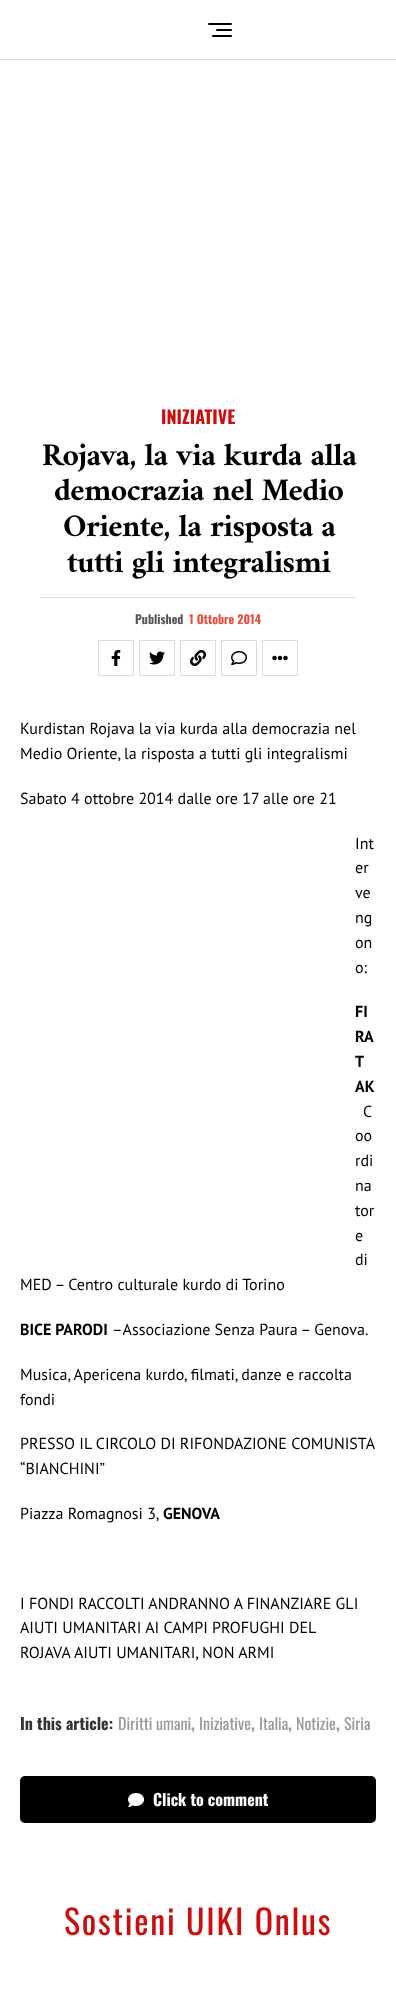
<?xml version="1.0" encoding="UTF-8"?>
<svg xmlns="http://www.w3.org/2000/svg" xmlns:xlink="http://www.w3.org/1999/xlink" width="396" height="2001">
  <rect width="100%" height="100%" fill="#ffffff" />
  <rect y="59" width="396" height="1" fill="#dddddd" />
  <rect x="208" y="23" width="24" height="2" rx="1" fill="#000000" />
  <rect x="216" y="29" width="16" height="2" rx="1" fill="#000000" />
  <rect x="212" y="35" width="20" height="2" rx="1" fill="#000000" />
  <rect x="40" y="597" width="316" height="1" fill="#dddddd" />
  <rect x="98.5" y="640.5" width="35" height="35" fill="none" stroke="#dddddd" />
  <image x="111" y="650" width="10" height="16" xlink:href="image1.png" />
  <rect x="139.5" y="640.5" width="35" height="35" fill="none" stroke="#dddddd" />
  <image x="149" y="651" width="16" height="14" xlink:href="image2.png" />
  <rect x="180.5" y="640.5" width="35" height="35" fill="none" stroke="#dddddd" />
  <image x="190" y="650" width="16" height="16" xlink:href="image3.png" />
  <rect x="221.5" y="640.5" width="35" height="35" fill="none" stroke="#dddddd" />
  <image x="231" y="651" width="16" height="14" xlink:href="image4.png" />
  <rect x="262.5" y="640.5" width="35" height="35" fill="none" stroke="#dddddd" />
  <image x="272" y="655" width="16" height="6" xlink:href="image5.png" />
  <rect x="20" y="1776" width="356" height="47" rx="5" fill="#000000" />
  <image x="128" y="1793" width="16" height="14" xlink:href="image6.png" />
  <text x="161" y="424" style="font-family: Oswald; font-size: 18px; font-weight: bold; fill: #cc0e0e">INIZIATIVE</text>
  <text x="42" y="465" style="font-family: Amiri; font-size: 31.75px; font-weight: bold; letter-spacing: -0.6px; fill: #000000">Rojava, la via kurda alla</text>
  <text x="54" y="500" style="font-family: Amiri; font-size: 31.75px; font-weight: bold; letter-spacing: -0.6px; fill: #000000">democrazia nel Medio</text>
  <text x="63" y="536" style="font-family: Amiri; font-size: 31.75px; font-weight: bold; letter-spacing: -0.6px; fill: #000000">Oriente, la risposta a</text>
  <text x="67" y="572" style="font-family: Amiri; font-size: 31.75px; font-weight: bold; letter-spacing: -0.6px; fill: #000000">tutti gli integralismi</text>
  <text x="135" y="624" style="font-family: Oswald; font-size: 12px; font-weight: bold; fill: #555555">Published</text>
  <text x="189" y="624" style="font-family: Oswald; font-size: 12px; font-weight: bold; fill: #e74c3c">1 Ottobre 2014</text>
  <text x="20" y="734" style="font-family: PT Sans; font-size: 16px; fill: #000000">Kurdistan Rojava la via kurda alla democrazia nel</text>
  <text x="20" y="759" style="font-family: PT Sans; font-size: 16px; fill: #000000">Medio Oriente, la risposta a tutti gli integralismi</text>
  <text x="20" y="804" style="font-family: PT Sans; font-size: 16px; fill: #000000">Sabato 4 ottobre 2014 dalle ore 17 alle ore 21</text>
  <text x="355" y="849" style="font-family: PT Sans; font-size: 16px; fill: #000000">Int</text>
  <text x="355" y="873" style="font-family: PT Sans; font-size: 16px; fill: #000000">er</text>
  <text x="355" y="898" style="font-family: PT Sans; font-size: 16px; fill: #000000">ve</text>
  <text x="355" y="923" style="font-family: PT Sans; font-size: 16px; fill: #000000">ng</text>
  <text x="355" y="948" style="font-family: PT Sans; font-size: 16px; fill: #000000">on</text>
  <text x="355" y="973" style="font-family: PT Sans; font-size: 16px; fill: #000000">o:</text>
  <text x="355" y="1017" style="font-family: PT Sans; font-size: 16px; font-weight: bold; fill: #000000">FI</text>
  <text x="355" y="1042" style="font-family: PT Sans; font-size: 16px; font-weight: bold; fill: #000000">RA</text>
  <text x="355" y="1067" style="font-family: PT Sans; font-size: 16px; font-weight: bold; fill: #000000">T</text>
  <text x="355" y="1092" style="font-family: PT Sans; font-size: 16px; font-weight: bold; fill: #000000">AK</text>
  <text x="363" y="1117" style="font-family: PT Sans; font-size: 16px; fill: #000000">C</text>
  <text x="355" y="1141" style="font-family: PT Sans; font-size: 16px; fill: #000000">oo</text>
  <text x="355" y="1166" style="font-family: PT Sans; font-size: 16px; fill: #000000">rdi</text>
  <text x="355" y="1191" style="font-family: PT Sans; font-size: 16px; fill: #000000">na</text>
  <text x="355" y="1216" style="font-family: PT Sans; font-size: 16px; fill: #000000">tor</text>
  <text x="355" y="1241" style="font-family: PT Sans; font-size: 16px; fill: #000000">e</text>
  <text x="355" y="1265" style="font-family: PT Sans; font-size: 16px; fill: #000000">di</text>
  <text x="20" y="1290" style="font-family: PT Sans; font-size: 16px; fill: #000000">MED – Centro culturale kurdo di Torino</text>
  <text x="20" y="1335" style="font-family: PT Sans; font-size: 16px; font-weight: bold; fill: #000000">BICE PARODI</text>
  <text x="112" y="1335" style="font-family: PT Sans; font-size: 16px; fill: #000000">–Associazione Senza Paura – Genova.</text>
  <text x="20" y="1380" style="font-family: PT Sans; font-size: 16px; fill: #000000">Musica, Apericena kurdo, filmati, danze e raccolta</text>
  <text x="20" y="1405" style="font-family: PT Sans; font-size: 16px; fill: #000000">fondi</text>
  <text x="20" y="1449" style="font-family: PT Sans; font-size: 16px; fill: #000000">PRESSO IL CIRCOLO DI RIFONDAZIONE COMUNISTA</text>
  <text x="20" y="1474" style="font-family: PT Sans; font-size: 16px; fill: #000000">“BIANCHINI”</text>
  <text x="20" y="1519" style="font-family: PT Sans; font-size: 16px; fill: #000000">Piazza Romagnosi 3,</text>
  <text x="163" y="1519" style="font-family: PT Sans; font-size: 16px; font-weight: bold; fill: #000000">GENOVA</text>
  <text x="20" y="1609" style="font-family: PT Sans; font-size: 16px; fill: #000000">I FONDI RACCOLTI ANDRANNO A FINANZIARE GLI</text>
  <text x="20" y="1633" style="font-family: PT Sans; font-size: 16px; fill: #000000">AIUTI UMANITARI AI CAMPI PROFUGHI DEL</text>
  <text x="20" y="1658" style="font-family: PT Sans; font-size: 16px; fill: #000000">ROJAVA AIUTI UMANITARI, NON ARMI</text>
  <text x="20" y="1730" style="font-family: Oswald; font-size: 16px; font-weight: bold; fill: #333333">In this article:</text>
  <text x="118" y="1730" style="font-family: Oswald; font-size: 16px; fill: #999999">Diritti umani</text>
  <text x="191" y="1730" style="font-family: Oswald; font-size: 16px; font-weight: bold; fill: #999999">,</text>
  <text x="199" y="1730" style="font-family: Oswald; font-size: 16px; fill: #999999">Iniziative</text>
  <text x="251" y="1730" style="font-family: Oswald; font-size: 16px; font-weight: bold; fill: #999999">,</text>
  <text x="259" y="1730" style="font-family: Oswald; font-size: 16px; fill: #999999">Italia</text>
  <text x="288" y="1730" style="font-family: Oswald; font-size: 16px; font-weight: bold; fill: #999999">,</text>
  <text x="296" y="1730" style="font-family: Oswald; font-size: 16px; fill: #999999">Notizie</text>
  <text x="336" y="1730" style="font-family: Oswald; font-size: 16px; font-weight: bold; fill: #999999">,</text>
  <text x="344" y="1730" style="font-family: Oswald; font-size: 16px; fill: #999999">Siria</text>
  <text x="153" y="1806" style="font-family: Oswald; font-size: 16px; font-weight: bold; fill: #ffffff">Click to comment</text>
  <text x="64" y="1935" style="font-family: Oswald; font-size: 34px; letter-spacing: 1.75px; fill: #cc0e0e">Sostieni UIKI Onlus</text>
</svg>
